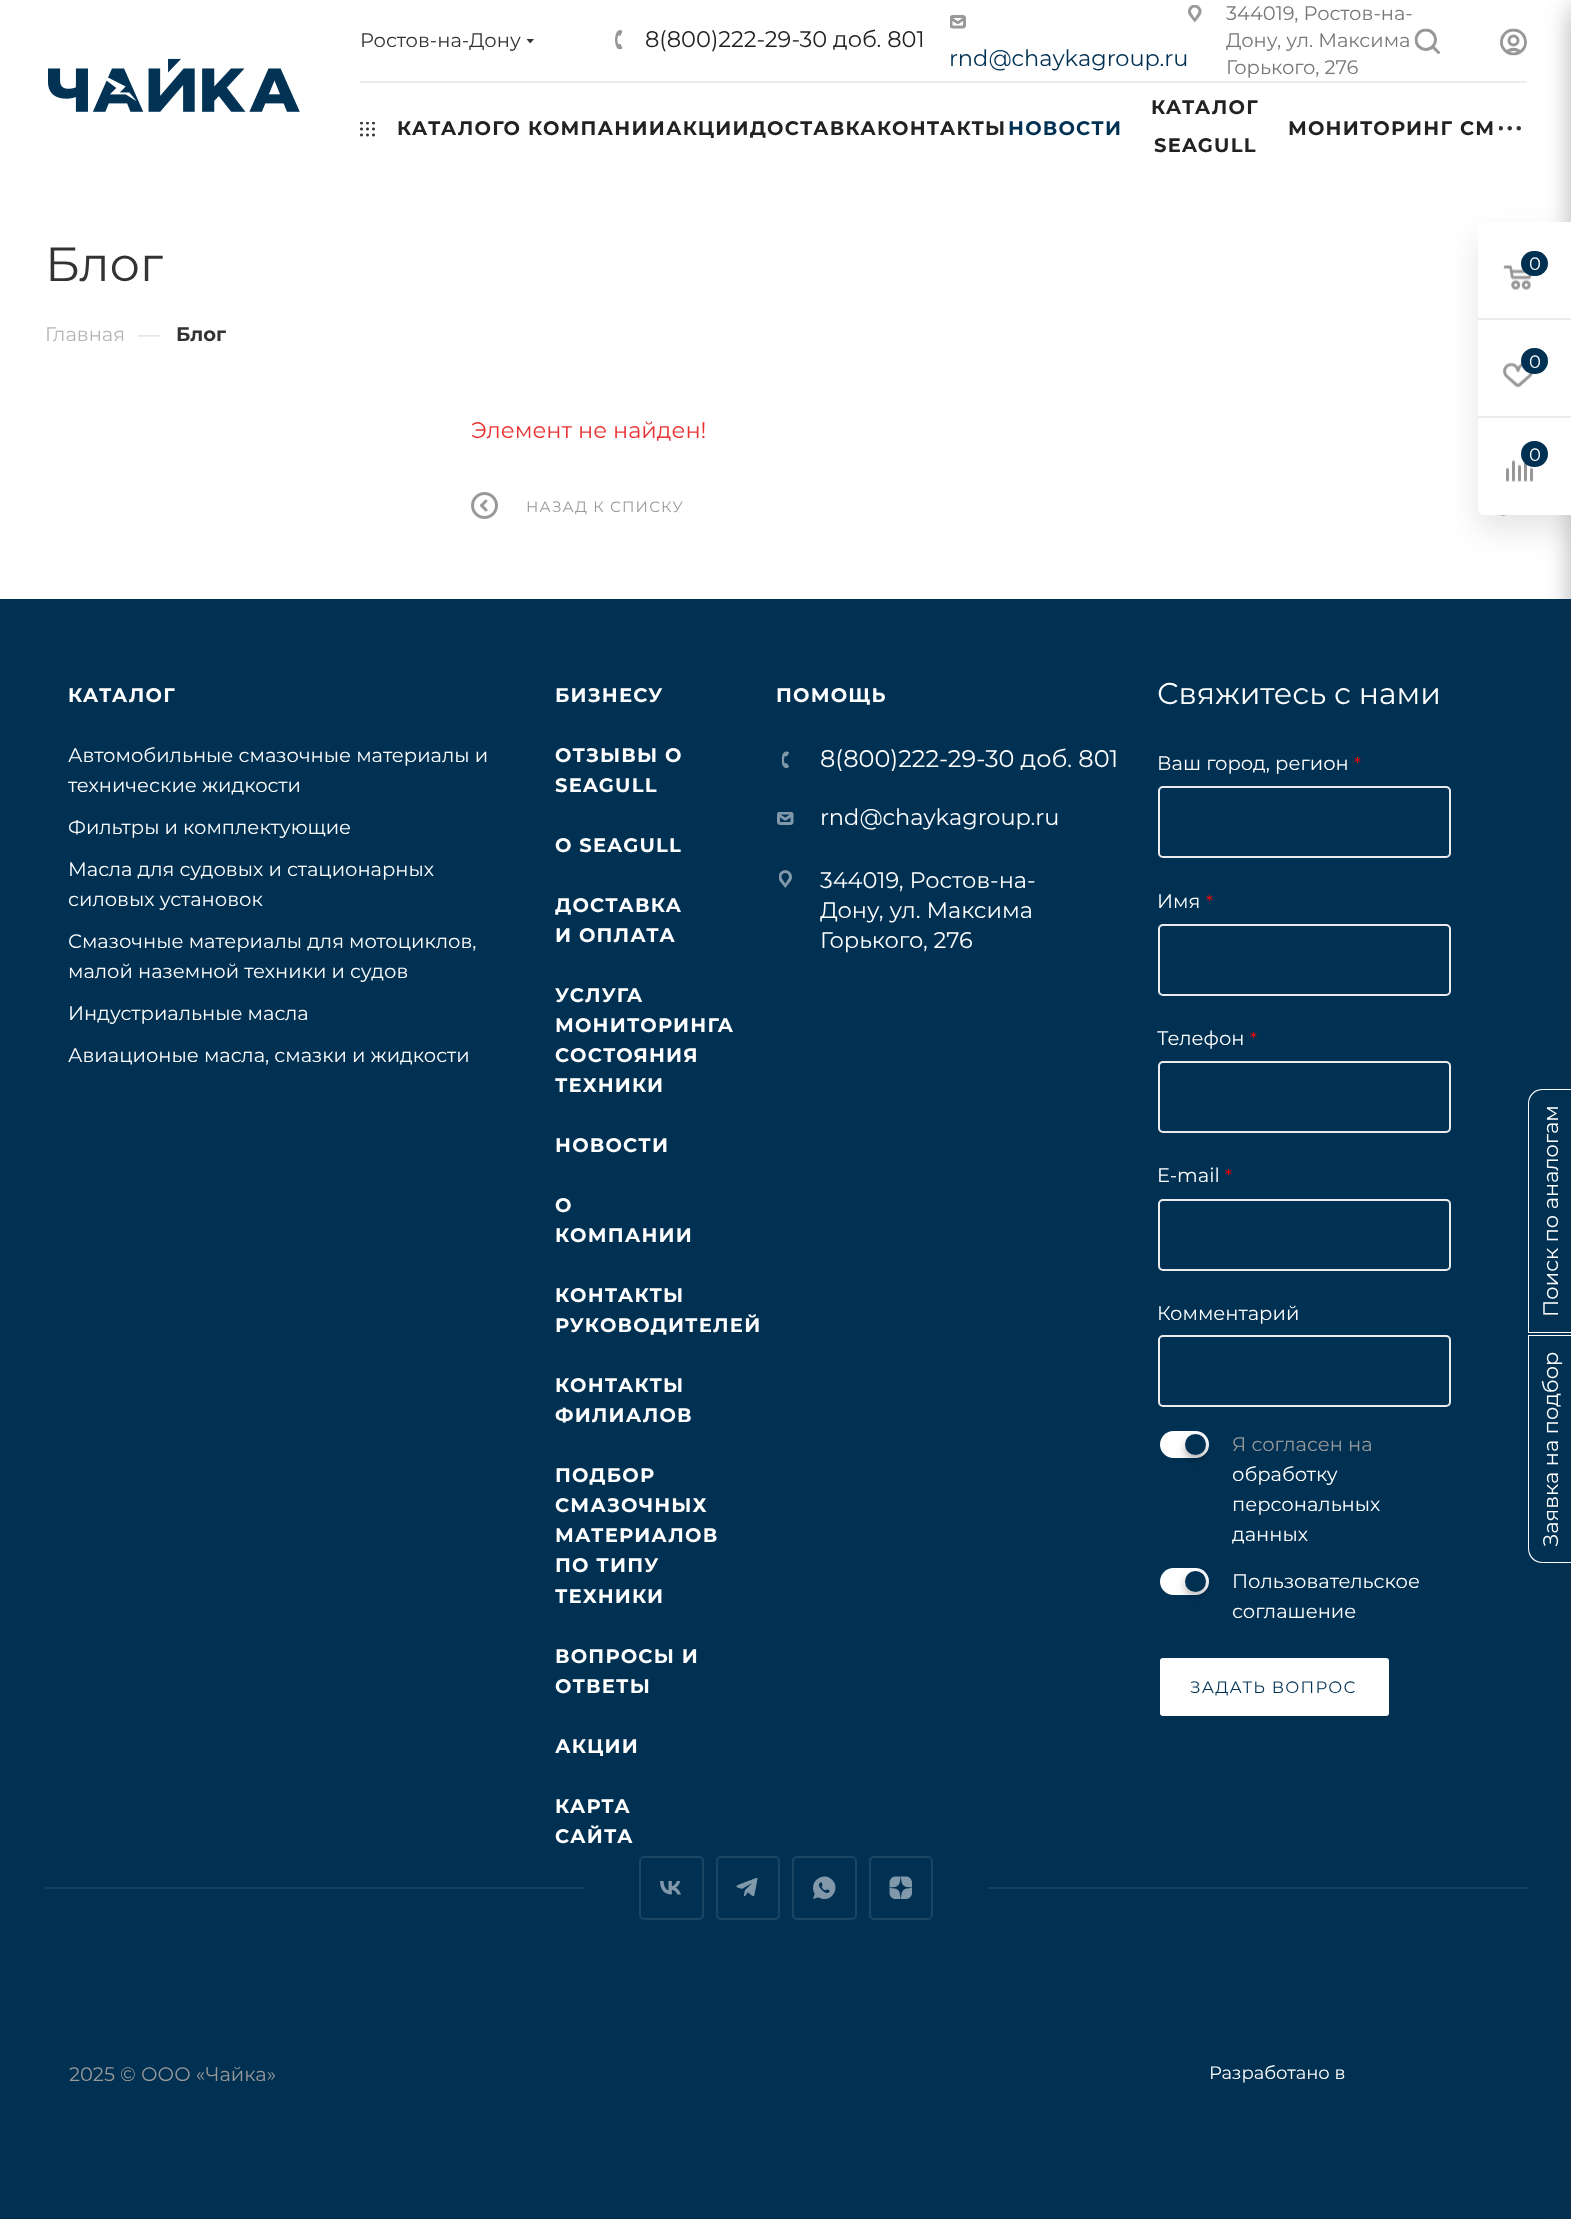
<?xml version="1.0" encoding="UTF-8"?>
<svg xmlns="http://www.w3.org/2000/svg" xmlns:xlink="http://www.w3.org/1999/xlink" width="1571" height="2219">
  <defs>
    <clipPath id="clip1"><rect x="777" y="747" width="360" height="24" /></clipPath>
  </defs>
  <rect width="100%" height="100%" fill="#ffffff" />
  <image x="48" y="58" width="252" height="54" xlink:href="image1.png" />
  <image x="526" y="39" width="8" height="5" xlink:href="image2.png" />
  <image x="615" y="30" width="8" height="20" xlink:href="image3.png" />
  <image x="1188" y="5" width="14" height="18" xlink:href="image4.png" />
  <image x="1414" y="28" width="26" height="26" xlink:href="image5.png" />
  <image x="1500" y="28" width="27" height="28" xlink:href="image6.png" />
  <image x="950" y="15" width="16" height="14" xlink:href="image7.png" />
  <rect x="360" y="81" width="1167" height="2" fill="#ededed" />
  <image x="360" y="122" width="15" height="15" xlink:href="image8.png" />
  <image x="1499" y="126" width="22" height="5" xlink:href="image9.png" />
  <image x="471" y="492" width="27" height="27" xlink:href="image10.png" />
  <image x="1500" y="515" width="6" height="1" xlink:href="image11.png" />
  <rect y="599" width="1571" height="1620" fill="#003153" />
  <rect x="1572" y="9" width="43" height="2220" rx="3" fill="#2c2c2c" fill-opacity="0.4" filter="blur(13.5px)" />
  <rect x="1478" y="237" width="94" height="293" rx="6" fill="#000000" fill-opacity="0.1" filter="blur(15px)" />
  <path d="M 1484 222 h 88 v 293 h -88 c -3.5 0 -6 -2.5 -6 -6 v -281 c 0 -3.5 2.5 -6 6 -6 z" fill="#ffffff" />
  <rect x="1478" y="318" width="93" height="2" fill="#ececec" />
  <image x="1503" y="265" width="29" height="25" xlink:href="image12.png" />
  <rect x="1521" y="251" width="27" height="25" rx="12.5" fill="#003153" />
  <rect x="1540" y="252" width="1" height="23" fill="#003153" />
  <rect x="1478" y="416" width="93" height="2" fill="#ececec" />
  <image x="1503" y="362" width="30" height="26" xlink:href="image13.png" />
  <rect x="1521" y="348" width="27" height="26" rx="13" fill="#003153" />
  <image x="1506" y="460" width="27" height="22" xlink:href="image14.png" />
  <rect x="1521" y="441" width="27" height="26" rx="13" fill="#003153" />
  <image x="781" y="751" width="8" height="17" xlink:href="image15.png" />
  <image x="777" y="812" width="17" height="13" xlink:href="image16.png" />
  <image x="779" y="870" width="13" height="18" xlink:href="image17.png" />
  <rect x="1159" y="787" width="291" height="70" rx="4" fill="none" stroke="#ececec" stroke-width="2" />
  <rect x="1159" y="925" width="291" height="70" rx="4" fill="none" stroke="#ececec" stroke-width="2" />
  <rect x="1159" y="1062" width="291" height="70" rx="4" fill="none" stroke="#ececec" stroke-width="2" />
  <rect x="1159" y="1200" width="291" height="70" rx="4" fill="none" stroke="#ececec" stroke-width="2" />
  <rect x="1159" y="1336" width="291" height="70" rx="4" fill="none" stroke="#ececec" stroke-width="2" />
  <rect x="1160" y="1431" width="49" height="27" rx="13.5" fill="#ffffff" />
  <rect x="1185" y="1439" width="21" height="21" rx="10.5" fill="#000000" fill-opacity="0.3" filter="blur(4.5px)" />
  <circle cx="1195.5" cy="1444.5" r="10.5" fill="#003153" />
  <rect x="1160" y="1568" width="49" height="27" rx="13.5" fill="#ffffff" />
  <rect x="1185" y="1575" width="21" height="21" rx="10.5" fill="#000000" fill-opacity="0.3" filter="blur(4.5px)" />
  <circle cx="1195.5" cy="1581.5" r="10.5" fill="#003153" />
  <rect x="1159" y="1657" width="231" height="60" rx="4" fill="#ffffff" stroke="#003153" stroke-width="2" />
  <rect x="45" y="1887" width="1482" height="2" fill="#144161" />
  <rect x="585" y="1887" width="402" height="2" fill="#003153" />
  <image x="660" y="1881" width="21" height="14" xlink:href="image18.png" />
  <rect x="640" y="1857" width="63" height="62" rx="4" fill="none" stroke="#1a4664" stroke-width="2" />
  <image x="736" y="1878" width="22" height="18" xlink:href="image19.png" />
  <rect x="717" y="1857" width="62" height="62" rx="4" fill="none" stroke="#1a4664" stroke-width="2" />
  <image x="813" y="1876" width="23" height="23" xlink:href="image20.png" />
  <rect x="793" y="1857" width="63" height="62" rx="4" fill="none" stroke="#1a4664" stroke-width="2" />
  <image x="889" y="1876" width="23" height="23" xlink:href="image21.png" />
  <rect x="870" y="1857" width="62" height="62" rx="4" fill="none" stroke="#1a4664" stroke-width="2" />
  <path d="M 1528 1333 v -229 c 0 -9 6 -15 15 -15 h 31 v 244 z" fill="#003153" />
  <path d="M 1528 1333 v -229 c 0 -9 6 -15 15 -15 h 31 v 244 z m 1 -1 v -228 c 0 -8 6 -14 14 -14 h 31 v 242 z" fill="#ffffff" fill-rule="evenodd" />
  <path d="M 1528 1548 v -213 h 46 v 228 h -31 c -9 0 -15 -6 -15 -15 z" fill="#003153" />
  <path d="M 1528 1548 v -213 h 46 v 228 h -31 c -9 0 -15 -6 -15 -15 z m 1 0 v -212 h 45 v 226 h -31 c -8 0 -14 -6 -14 -14 z" fill="#ffffff" fill-rule="evenodd" />
  <text x="360" y="47" style="font-family: Montserrat; font-size: 19.5px; fill: #333333">Ростов-на-Дону</text>
  <text x="645" y="47" style="font-family: Montserrat; font-size: 22.5px; fill: #222222">8(800)222-29-30 доб. 801</text>
  <text x="1226" y="20" style="font-family: Montserrat; font-size: 19.5px; fill: #777777">344019, Ростов-на-</text>
  <text x="1226" y="47" style="font-family: Montserrat; font-size: 19.5px; fill: #777777">Дону, ул. Максима</text>
  <text x="1226" y="74" style="font-family: Montserrat; font-size: 19.5px; fill: #777777">Горького, 276</text>
  <text x="949" y="66" style="font-family: Montserrat; font-size: 22.5px; fill: #003153">rnd@chaykagroup.ru</text>
  <text x="397" y="135" style="font-family: Montserrat; font-size: 19.5px; font-weight: bold; letter-spacing: 1.2px; fill: #222222">КАТАЛОГО КОМПАНИИАКЦИИДОСТАВКАКОНТАКТЫ</text>
  <text x="1008" y="135" style="font-family: Montserrat; font-size: 19.5px; font-weight: bold; letter-spacing: 1.2px; fill: #003153">НОВОСТИ</text>
  <text x="1151" y="114" style="font-family: Montserrat; font-size: 19.5px; font-weight: bold; letter-spacing: 1.2px; fill: #222222">КАТАЛОГ</text>
  <text x="1154" y="152" style="font-family: Montserrat; font-size: 19.5px; font-weight: bold; letter-spacing: 1.2px; fill: #222222">SEAGULL</text>
  <text x="1288" y="135" style="font-family: Montserrat; font-size: 19.5px; font-weight: bold; letter-spacing: 1.2px; fill: #222222">МОНИТОРИНГ СМ</text>
  <text x="45" y="281" style="font-family: Montserrat; font-size: 48px; fill: #333333">Блог</text>
  <text x="45" y="341" style="font-family: Montserrat; font-size: 19.5px; fill: #b6b5b5">Главная</text>
  <text x="138" y="342" style="font-family: Montserrat; font-size: 22.5px; fill: #dddddd">—</text>
  <text x="176" y="341" style="font-family: Montserrat; font-size: 19.5px; font-weight: bold; fill: #333333">Блог</text>
  <text x="471" y="438" style="font-family: Montserrat; font-size: 22.5px; fill: #e83333">Элемент не найден!</text>
  <text x="526" y="512" style="font-family: Montserrat; font-size: 15px; letter-spacing: 1.2px; fill: #999999">НАЗАД К СПИСКУ</text>
  <text x="1529" y="270" style="font-family: Montserrat; font-size: 18px; fill: #ffffff">0</text>
  <text x="1529" y="368" style="font-family: Montserrat; font-size: 18px; fill: #ffffff">0</text>
  <text x="1529" y="461" style="font-family: Montserrat; font-size: 18px; fill: #ffffff">0</text>
  <text x="68" y="702" style="font-family: Montserrat; font-size: 19.5px; font-weight: bold; letter-spacing: 1.2px; fill: #ffffff">КАТАЛОГ</text>
  <text x="68" y="762" style="font-family: Montserrat; font-size: 19.5px; fill: #ffffff">Автомобильные смазочные материалы и</text>
  <text x="68" y="792" style="font-family: Montserrat; font-size: 19.5px; fill: #ffffff">технические жидкости</text>
  <text x="68" y="834" style="font-family: Montserrat; font-size: 19.5px; fill: #ffffff">Фильтры и комплектующие</text>
  <text x="68" y="876" style="font-family: Montserrat; font-size: 19.5px; fill: #ffffff">Масла для судовых и стационарных</text>
  <text x="68" y="906" style="font-family: Montserrat; font-size: 19.5px; fill: #ffffff">силовых установок</text>
  <text x="68" y="948" style="font-family: Montserrat; font-size: 19.5px; fill: #ffffff">Смазочные материалы для мотоциклов,</text>
  <text x="68" y="978" style="font-family: Montserrat; font-size: 19.5px; fill: #ffffff">малой наземной техники и судов</text>
  <text x="68" y="1020" style="font-family: Montserrat; font-size: 19.5px; fill: #ffffff">Индустриальные масла</text>
  <text x="68" y="1062" style="font-family: Montserrat; font-size: 19.5px; fill: #ffffff">Авиационые масла, смазки и жидкости</text>
  <text x="555" y="702" style="font-family: Montserrat; font-size: 19.5px; font-weight: bold; letter-spacing: 1.2px; fill: #ffffff">БИЗНЕСУ</text>
  <text x="555" y="762" style="font-family: Montserrat; font-size: 19.5px; font-weight: bold; letter-spacing: 1.2px; fill: #ffffff">ОТЗЫВЫ О</text>
  <text x="555" y="792" style="font-family: Montserrat; font-size: 19.5px; font-weight: bold; letter-spacing: 1.2px; fill: #ffffff">SEAGULL</text>
  <text x="555" y="852" style="font-family: Montserrat; font-size: 19.5px; font-weight: bold; letter-spacing: 1.2px; fill: #ffffff">О SEAGULL</text>
  <text x="555" y="912" style="font-family: Montserrat; font-size: 19.5px; font-weight: bold; letter-spacing: 1.2px; fill: #ffffff">ДОСТАВКА</text>
  <text x="555" y="942" style="font-family: Montserrat; font-size: 19.5px; font-weight: bold; letter-spacing: 1.2px; fill: #ffffff">И ОПЛАТА</text>
  <text x="555" y="1002" style="font-family: Montserrat; font-size: 19.5px; font-weight: bold; letter-spacing: 1.2px; fill: #ffffff">УСЛУГА</text>
  <text x="555" y="1032" style="font-family: Montserrat; font-size: 19.5px; font-weight: bold; letter-spacing: 1.2px; fill: #ffffff">МОНИТОРИНГА</text>
  <text x="555" y="1062" style="font-family: Montserrat; font-size: 19.5px; font-weight: bold; letter-spacing: 1.2px; fill: #ffffff">СОСТОЯНИЯ</text>
  <text x="555" y="1092" style="font-family: Montserrat; font-size: 19.5px; font-weight: bold; letter-spacing: 1.2px; fill: #ffffff">ТЕХНИКИ</text>
  <text x="555" y="1152" style="font-family: Montserrat; font-size: 19.5px; font-weight: bold; letter-spacing: 1.2px; fill: #ffffff">НОВОСТИ</text>
  <text x="555" y="1212" style="font-family: Montserrat; font-size: 19.5px; font-weight: bold; letter-spacing: 1.2px; fill: #ffffff">О</text>
  <text x="555" y="1242" style="font-family: Montserrat; font-size: 19.5px; font-weight: bold; letter-spacing: 1.2px; fill: #ffffff">КОМПАНИИ</text>
  <text x="555" y="1302" style="font-family: Montserrat; font-size: 19.5px; font-weight: bold; letter-spacing: 1.2px; fill: #ffffff">КОНТАКТЫ</text>
  <text x="555" y="1332" style="font-family: Montserrat; font-size: 19.5px; font-weight: bold; letter-spacing: 1.2px; fill: #ffffff">РУКОВОДИТЕЛЕЙ</text>
  <text x="555" y="1392" style="font-family: Montserrat; font-size: 19.5px; font-weight: bold; letter-spacing: 1.2px; fill: #ffffff">КОНТАКТЫ</text>
  <text x="555" y="1422" style="font-family: Montserrat; font-size: 19.5px; font-weight: bold; letter-spacing: 1.2px; fill: #ffffff">ФИЛИАЛОВ</text>
  <text x="555" y="1482" style="font-family: Montserrat; font-size: 19.5px; font-weight: bold; letter-spacing: 1.2px; fill: #ffffff">ПОДБОР</text>
  <text x="555" y="1512" style="font-family: Montserrat; font-size: 19.5px; font-weight: bold; letter-spacing: 1.2px; fill: #ffffff">СМАЗОЧНЫХ</text>
  <text x="555" y="1542" style="font-family: Montserrat; font-size: 19.5px; font-weight: bold; letter-spacing: 1.2px; fill: #ffffff">МАТЕРИАЛОВ</text>
  <text x="555" y="1572" style="font-family: Montserrat; font-size: 19.5px; font-weight: bold; letter-spacing: 1.2px; fill: #ffffff">ПО ТИПУ</text>
  <text x="555" y="1603" style="font-family: Montserrat; font-size: 19.5px; font-weight: bold; letter-spacing: 1.2px; fill: #ffffff">ТЕХНИКИ</text>
  <text x="555" y="1663" style="font-family: Montserrat; font-size: 19.5px; font-weight: bold; letter-spacing: 1.2px; fill: #ffffff">ВОПРОСЫ И</text>
  <text x="555" y="1693" style="font-family: Montserrat; font-size: 19.5px; font-weight: bold; letter-spacing: 1.2px; fill: #ffffff">ОТВЕТЫ</text>
  <text x="555" y="1753" style="font-family: Montserrat; font-size: 19.5px; font-weight: bold; letter-spacing: 1.2px; fill: #ffffff">АКЦИИ</text>
  <text x="555" y="1813" style="font-family: Montserrat; font-size: 19.5px; font-weight: bold; letter-spacing: 1.2px; fill: #ffffff">КАРТА</text>
  <text x="555" y="1843" style="font-family: Montserrat; font-size: 19.5px; font-weight: bold; letter-spacing: 1.2px; fill: #ffffff">САЙТА</text>
  <text x="776" y="702" style="font-family: Montserrat; font-size: 19.5px; font-weight: bold; letter-spacing: 1.2px; fill: #ffffff">ПОМОЩЬ</text>
  <g clip-path="url(#clip1)">
    <text x="820" y="767" style="font-family: Montserrat; font-size: 24px; fill: #ffffff">8(800)222-29-30 доб. 801</text>
  </g>
  <text x="820" y="825" style="font-family: Montserrat; font-size: 22.5px; fill: #ffffff">rnd@chaykagroup.ru</text>
  <text x="820" y="888" style="font-family: Montserrat; font-size: 22.5px; fill: #ffffff">344019, Ростов-на-</text>
  <text x="820" y="918" style="font-family: Montserrat; font-size: 22.5px; fill: #ffffff">Дону, ул. Максима</text>
  <text x="820" y="948" style="font-family: Montserrat; font-size: 22.5px; fill: #ffffff">Горького, 276</text>
  <text x="1157" y="704" style="font-family: Montserrat; font-size: 30px; fill: #ffffff">Свяжитесь с нами</text>
  <text x="1157" y="770" style="font-family: Montserrat; font-size: 19.5px; fill: #ffffff">Ваш город, регион</text>
  <text x="1354" y="770" style="font-family: Montserrat; font-size: 18px; fill: #ff0000">*</text>
  <text x="1157" y="908" style="font-family: Montserrat; font-size: 19.5px; fill: #ffffff">Имя</text>
  <text x="1206" y="908" style="font-family: Montserrat; font-size: 18px; fill: #ff0000">*</text>
  <text x="1157" y="1045" style="font-family: Montserrat; font-size: 19.5px; fill: #ffffff">Телефон</text>
  <text x="1250" y="1045" style="font-family: Montserrat; font-size: 18px; fill: #ff0000">*</text>
  <text x="1157" y="1182" style="font-family: Montserrat; font-size: 19.5px; fill: #ffffff">E-mail</text>
  <text x="1225" y="1182" style="font-family: Montserrat; font-size: 18px; fill: #ff0000">*</text>
  <text x="1157" y="1320" style="font-family: Montserrat; font-size: 19.5px; fill: #ffffff">Комментарий</text>
  <text x="1232" y="1451" style="font-family: Montserrat; font-size: 19.5px; fill: #999999">Я согласен на</text>
  <text x="1232" y="1481" style="font-family: Montserrat; font-size: 19.5px; fill: #ffffff">обработку</text>
  <text x="1232" y="1511" style="font-family: Montserrat; font-size: 19.5px; fill: #ffffff">персональных</text>
  <text x="1232" y="1541" style="font-family: Montserrat; font-size: 19.5px; fill: #ffffff">данных</text>
  <text x="1232" y="1588" style="font-family: Montserrat; font-size: 19.5px; fill: #ffffff">Пользовательское</text>
  <text x="1232" y="1618" style="font-family: Montserrat; font-size: 19.5px; fill: #ffffff">соглашение</text>
  <text x="1190" y="1693" style="font-family: Montserrat; font-size: 16.5px; letter-spacing: 1.2px; fill: #003153">ЗАДАТЬ ВОПРОС</text>
  <text x="69" y="2081" style="font-family: Montserrat; font-size: 19.5px; fill: #999999">2025 © ООО «Чайка»</text>
  <text x="1209" y="2079" style="font-family: Montserrat; font-size: 18px; fill: #ffffff">Разработано в</text>
  <text x="1558" y="1317" transform="rotate(-90 1558 1317)" style="font-family: Montserrat; font-size: 21px; fill: #ffffff">Поиск по аналогам</text>
  <text x="1558" y="1547" transform="rotate(-90 1558 1547)" style="font-family: Montserrat; font-size: 21px; fill: #ffffff">Заявка на подбор</text>
</svg>
